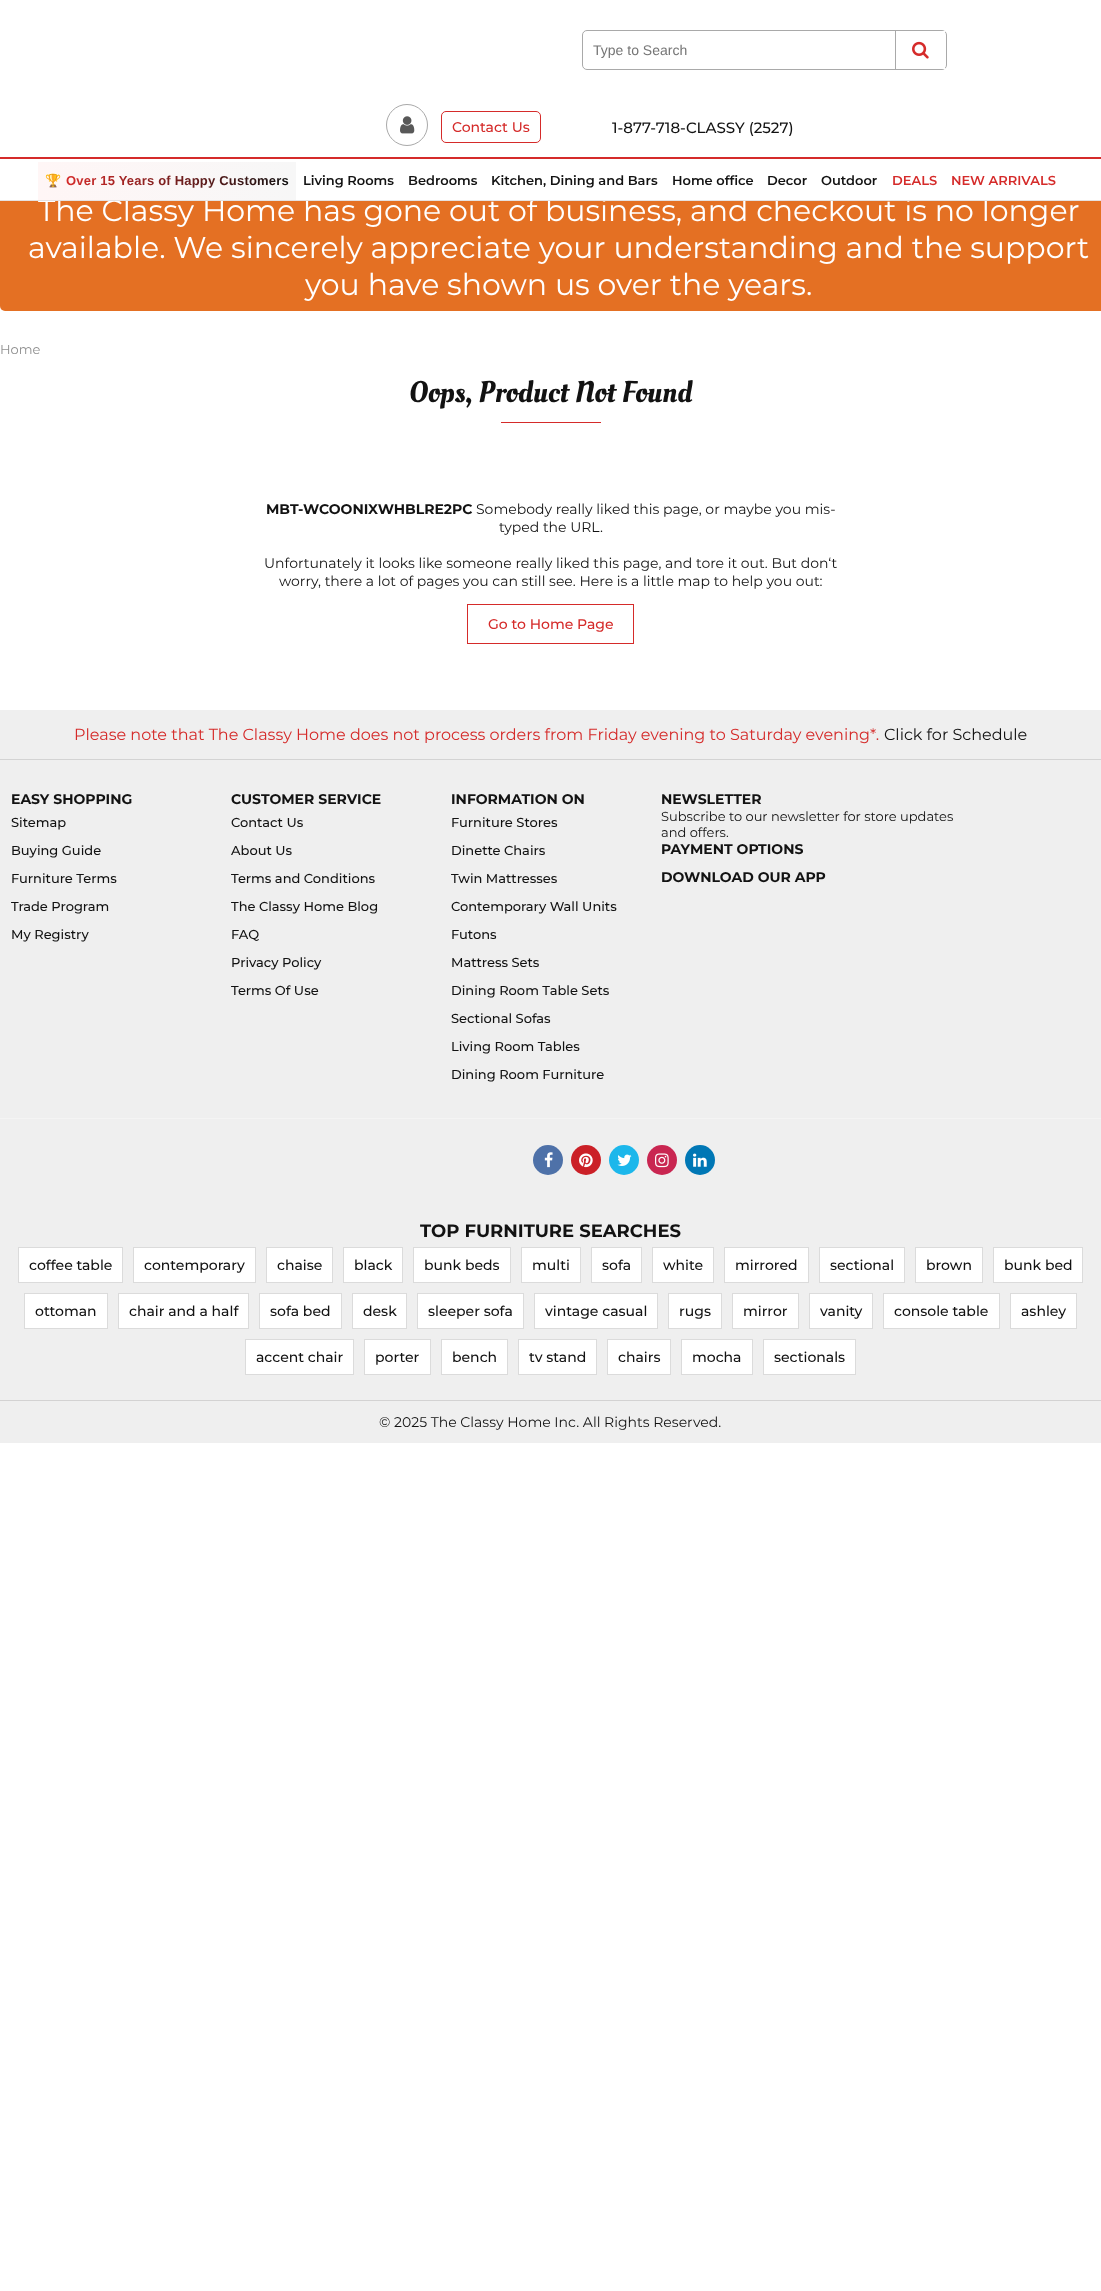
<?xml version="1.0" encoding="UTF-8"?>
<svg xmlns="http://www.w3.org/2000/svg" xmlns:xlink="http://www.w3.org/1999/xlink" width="1101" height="2291">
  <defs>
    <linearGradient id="g1" gradientUnits="userSpaceOnUse" x1="66" y1="181" x2="289" y2="181"><stop offset="0" stop-color="#d52b2a" /><stop offset="1" stop-color="#121212" /></linearGradient>
    <linearGradient id="g2" gradientUnits="userSpaceOnUse" x1="38" y1="181" x2="296" y2="181"><stop offset="0" stop-color="#fff6f6" /><stop offset="1" stop-color="#f7f7f7" /></linearGradient>
  </defs>
  <rect width="100%" height="100%" fill="#ffffff" />
  <rect y="184" width="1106" height="127" rx="5" fill="#e47023" />
  <rect y="184" width="1101" height="16" fill="#ffffff" />
  <rect y="157" width="1101" height="2" fill="#d52b2a" />
  <rect x="582.5" y="30.5" width="364" height="39" rx="4.5" fill="none" stroke="#a9a9a9" />
  <rect x="942" y="31" width="3" height="38" fill="#ffffff" />
  <rect x="895" y="31" width="1" height="38" fill="#a9a9a9" />
  <image x="912" y="41" width="17" height="18" xlink:href="image1.png" />
  <circle cx="407" cy="125" r="20.5" fill="none" stroke="#a9a9a9" />
  <image x="400" y="116" width="15" height="18" xlink:href="image2.png" />
  <rect x="441.5" y="111.5" width="99" height="31" rx="4.5" fill="none" stroke="#d52b2a" />
  <rect x="501" y="422" width="100" height="1" fill="#d52b2a" />
  <rect x="467.5" y="604.5" width="166" height="39" fill="none" stroke="#d52b2a" />
  <rect y="710" width="1101" height="733" fill="#efefef" />
  <rect y="759" width="1101" height="1" fill="#d3d3d3" />
  <rect y="1118" width="1101" height="1" fill="#f4f4f4" />
  <circle cx="548" cy="1160" r="15" fill="#4e71a8" />
  <image x="544" y="1152" width="9" height="16" xlink:href="image3.png" />
  <circle cx="586" cy="1160" r="15" fill="#cb2027" />
  <image x="579" y="1153" width="14" height="15" xlink:href="image4.png" />
  <circle cx="624" cy="1160" r="15" fill="#1cb7eb" />
  <image x="617" y="1154" width="15" height="12" xlink:href="image5.png" />
  <circle cx="662" cy="1160" r="15" fill="#c92651" />
  <image x="655" y="1153" width="14" height="15" xlink:href="image6.png" />
  <circle cx="700" cy="1160" r="15" fill="#0077b5" />
  <image x="693" y="1153" width="14" height="14" xlink:href="image7.png" />
  <rect x="18.5" y="1247.5" width="104" height="35" fill="#ffffff" stroke="#dbdbdb" />
  <rect x="133.5" y="1247.5" width="122" height="35" fill="#ffffff" stroke="#dbdbdb" />
  <rect x="266.5" y="1247.5" width="66" height="35" fill="#ffffff" stroke="#dbdbdb" />
  <rect x="343.5" y="1247.5" width="59" height="35" fill="#ffffff" stroke="#dbdbdb" />
  <rect x="413.5" y="1247.5" width="97" height="35" fill="#ffffff" stroke="#dbdbdb" />
  <rect x="521.5" y="1247.5" width="59" height="35" fill="#ffffff" stroke="#dbdbdb" />
  <rect x="591.5" y="1247.5" width="50" height="35" fill="#ffffff" stroke="#dbdbdb" />
  <rect x="652.5" y="1247.5" width="61" height="35" fill="#ffffff" stroke="#dbdbdb" />
  <rect x="724.5" y="1247.5" width="84" height="35" fill="#ffffff" stroke="#dbdbdb" />
  <rect x="819.5" y="1247.5" width="85" height="35" fill="#ffffff" stroke="#dbdbdb" />
  <rect x="915.5" y="1247.5" width="67" height="35" fill="#ffffff" stroke="#dbdbdb" />
  <rect x="993.5" y="1247.5" width="89" height="35" fill="#ffffff" stroke="#dbdbdb" />
  <rect x="24.5" y="1293.5" width="83" height="35" fill="#ffffff" stroke="#dbdbdb" />
  <rect x="118.5" y="1293.5" width="130" height="35" fill="#ffffff" stroke="#dbdbdb" />
  <rect x="259.5" y="1293.5" width="82" height="35" fill="#ffffff" stroke="#dbdbdb" />
  <rect x="352.5" y="1293.5" width="54" height="35" fill="#ffffff" stroke="#dbdbdb" />
  <rect x="417.5" y="1293.5" width="106" height="35" fill="#ffffff" stroke="#dbdbdb" />
  <rect x="534.5" y="1293.5" width="123" height="35" fill="#ffffff" stroke="#dbdbdb" />
  <rect x="668.5" y="1293.5" width="53" height="35" fill="#ffffff" stroke="#dbdbdb" />
  <rect x="732.5" y="1293.5" width="66" height="35" fill="#ffffff" stroke="#dbdbdb" />
  <rect x="809.5" y="1293.5" width="63" height="35" fill="#ffffff" stroke="#dbdbdb" />
  <rect x="883.5" y="1293.5" width="116" height="35" fill="#ffffff" stroke="#dbdbdb" />
  <rect x="1010.5" y="1293.5" width="66" height="35" fill="#ffffff" stroke="#dbdbdb" />
  <rect x="245.5" y="1339.5" width="108" height="35" fill="#ffffff" stroke="#dbdbdb" />
  <rect x="364.5" y="1339.5" width="66" height="35" fill="#ffffff" stroke="#dbdbdb" />
  <rect x="441.5" y="1339.5" width="66" height="35" fill="#ffffff" stroke="#dbdbdb" />
  <rect x="518.5" y="1339.5" width="78" height="35" fill="#ffffff" stroke="#dbdbdb" />
  <rect x="607.5" y="1339.5" width="63" height="35" fill="#ffffff" stroke="#dbdbdb" />
  <rect x="681.5" y="1339.5" width="71" height="35" fill="#ffffff" stroke="#dbdbdb" />
  <rect x="763.5" y="1339.5" width="92" height="35" fill="#ffffff" stroke="#dbdbdb" />
  <rect y="1400" width="1101" height="1" fill="#d3d2d2" />
  <text x="593" y="55" style="font-family: Liberation Sans; font-size: 14px; fill: #757575">Type to Search</text>
  <text x="452" y="132" style="font-family: Montserrat; font-size: 14px; font-weight: 500; fill: #d52b2a">Contact Us</text>
  <text x="612" y="133" style="font-family: Montserrat; font-size: 15px; font-weight: 500; fill: #121212">1-877-718-CLASSY (2527)</text>
  <text x="303" y="185" style="font-family: Montserrat; font-size: 13px; font-weight: 600; fill: #121212">Living Rooms</text>
  <text x="408" y="185" style="font-family: Montserrat; font-size: 13px; font-weight: 600; fill: #121212">Bedrooms</text>
  <text x="491" y="185" style="font-family: Montserrat; font-size: 13px; font-weight: 600; fill: #121212">Kitchen, Dining and Bars</text>
  <text x="672" y="185" style="font-family: Montserrat; font-size: 13px; font-weight: 600; fill: #121212">Home office</text>
  <text x="767" y="185" style="font-family: Montserrat; font-size: 13px; font-weight: 600; fill: #121212">Decor</text>
  <text x="821" y="185" style="font-family: Montserrat; font-size: 13px; font-weight: 600; fill: #121212">Outdoor</text>
  <text x="892" y="185" style="font-family: Montserrat; font-size: 13px; font-weight: 600; fill: #d52b2a">DEALS</text>
  <text x="951" y="185" style="font-family: Montserrat; font-size: 13px; font-weight: 600; fill: #d52b2a">NEW ARRIVALS</text>
  <text x="38" y="221" style="font-family: Montserrat; font-size: 30px; fill: #ffffff">The Classy Home has gone out of business, and checkout is no longer</text>
  <rect x="38" y="162" width="258" height="38" fill="url(#g2)" />
  <text x="66" y="185" style="font-family: Liberation Sans; font-size: 13px; font-weight: bold; letter-spacing: 0.2px; fill: url(#g1)">Over 15 Years of Happy Customers</text>
  <text x="45" y="185" style="font-family: Noto Color Emoji; font-size: 13px; font-weight: bold; letter-spacing: 0.2px; fill: #121212">🏆</text>
  <rect y="200" width="1101" height="1" fill="#e5e2e2" />
  <text x="28" y="258" style="font-family: Montserrat; font-size: 30px; fill: #ffffff">available. We sincerely appreciate your understanding and the support</text>
  <text x="305" y="295" style="font-family: Montserrat; font-size: 30px; fill: #ffffff">you have shown us over the years.</text>
  <text x="0" y="354" style="font-family: Montserrat; font-size: 13px; fill: #909090">Home</text>
  <text x="409" y="402" style="font-family: Oleo Script; font-size: 30px; fill: #121212">Oops, Product Not Found</text>
  <text x="266" y="514" style="font-family: Montserrat; font-size: 14px; font-weight: bold; fill: #121212">MBT-WCOONIXWHBLRE2PC</text>
  <text x="476" y="514" style="font-family: Montserrat; font-size: 14px; fill: #121212">Somebody really liked this page, or maybe you mis-</text>
  <text x="499" y="532" style="font-family: Montserrat; font-size: 14px; fill: #121212">typed the URL.</text>
  <text x="264" y="568" style="font-family: Montserrat; font-size: 14px; fill: #121212">Unfortunately it looks like someone really liked this page, and tore it out. But don‘t</text>
  <text x="279" y="586" style="font-family: Montserrat; font-size: 14px; fill: #121212">worry, there a lot of pages you can still see. Here is a little map to help you out:</text>
  <text x="488" y="629" style="font-family: Montserrat; font-size: 14px; font-weight: 500; fill: #d52b2a">Go to Home Page</text>
  <text x="74" y="740" style="font-family: Montserrat; font-size: 16px; fill: #d52b2a">Please note that The Classy Home does not process orders from Friday evening to Saturday evening*.</text>
  <text x="884" y="740" style="font-family: Montserrat; font-size: 16px; fill: #121212">Click for Schedule</text>
  <text x="11" y="804" style="font-family: Montserrat; font-size: 14px; font-weight: bold; fill: #121212">EASY SHOPPING</text>
  <text x="11" y="827" style="font-family: Montserrat; font-size: 13px; font-weight: 500; fill: #121212">Sitemap</text>
  <text x="11" y="855" style="font-family: Montserrat; font-size: 13px; font-weight: 500; fill: #121212">Buying Guide</text>
  <text x="11" y="883" style="font-family: Montserrat; font-size: 13px; font-weight: 500; fill: #121212">Furniture Terms</text>
  <text x="11" y="911" style="font-family: Montserrat; font-size: 13px; font-weight: 500; fill: #121212">Trade Program</text>
  <text x="11" y="939" style="font-family: Montserrat; font-size: 13px; font-weight: 500; fill: #121212">My Registry</text>
  <text x="231" y="804" style="font-family: Montserrat; font-size: 14px; font-weight: bold; fill: #121212">CUSTOMER SERVICE</text>
  <text x="231" y="827" style="font-family: Montserrat; font-size: 13px; font-weight: 500; fill: #121212">Contact Us</text>
  <text x="231" y="855" style="font-family: Montserrat; font-size: 13px; font-weight: 500; fill: #121212">About Us</text>
  <text x="231" y="883" style="font-family: Montserrat; font-size: 13px; font-weight: 500; fill: #121212">Terms and Conditions</text>
  <text x="231" y="911" style="font-family: Montserrat; font-size: 13px; font-weight: 500; fill: #121212">The Classy Home Blog</text>
  <text x="231" y="939" style="font-family: Montserrat; font-size: 13px; font-weight: 500; fill: #121212">FAQ</text>
  <text x="231" y="967" style="font-family: Montserrat; font-size: 13px; font-weight: 500; fill: #121212">Privacy Policy</text>
  <text x="231" y="995" style="font-family: Montserrat; font-size: 13px; font-weight: 500; fill: #121212">Terms Of Use</text>
  <text x="451" y="804" style="font-family: Montserrat; font-size: 14px; font-weight: bold; fill: #121212">INFORMATION ON</text>
  <text x="451" y="827" style="font-family: Montserrat; font-size: 13px; font-weight: 500; fill: #121212">Furniture Stores</text>
  <text x="451" y="855" style="font-family: Montserrat; font-size: 13px; font-weight: 500; fill: #121212">Dinette Chairs</text>
  <text x="451" y="883" style="font-family: Montserrat; font-size: 13px; font-weight: 500; fill: #121212">Twin Mattresses</text>
  <text x="451" y="911" style="font-family: Montserrat; font-size: 13px; font-weight: 500; fill: #121212">Contemporary Wall Units</text>
  <text x="451" y="939" style="font-family: Montserrat; font-size: 13px; font-weight: 500; fill: #121212">Futons</text>
  <text x="451" y="967" style="font-family: Montserrat; font-size: 13px; font-weight: 500; fill: #121212">Mattress Sets</text>
  <text x="451" y="995" style="font-family: Montserrat; font-size: 13px; font-weight: 500; fill: #121212">Dining Room Table Sets</text>
  <text x="451" y="1023" style="font-family: Montserrat; font-size: 13px; font-weight: 500; fill: #121212">Sectional Sofas</text>
  <text x="451" y="1051" style="font-family: Montserrat; font-size: 13px; font-weight: 500; fill: #121212">Living Room Tables</text>
  <text x="451" y="1079" style="font-family: Montserrat; font-size: 13px; font-weight: 500; fill: #121212">Dining Room Furniture</text>
  <text x="661" y="804" style="font-family: Montserrat; font-size: 14px; font-weight: bold; fill: #121212">NEWSLETTER</text>
  <text x="661" y="821" style="font-family: Montserrat; font-size: 13px; fill: #121212">Subscribe to our newsletter for store updates</text>
  <text x="661" y="837" style="font-family: Montserrat; font-size: 13px; fill: #121212">and offers.</text>
  <text x="661" y="854" style="font-family: Montserrat; font-size: 14px; font-weight: bold; fill: #121212">PAYMENT OPTIONS</text>
  <text x="661" y="882" style="font-family: Montserrat; font-size: 14px; font-weight: bold; fill: #121212">DOWNLOAD OUR APP</text>
  <text x="420" y="1237" style="font-family: Montserrat; font-size: 18px; font-weight: bold; fill: #121212">TOP FURNITURE SEARCHES</text>
  <text x="29" y="1270" style="font-family: Montserrat; font-size: 14px; font-weight: 500; fill: #121212">coffee table</text>
  <text x="144" y="1270" style="font-family: Montserrat; font-size: 14px; font-weight: 500; fill: #121212">contemporary</text>
  <text x="277" y="1270" style="font-family: Montserrat; font-size: 14px; font-weight: 500; fill: #121212">chaise</text>
  <text x="354" y="1270" style="font-family: Montserrat; font-size: 14px; font-weight: 500; fill: #121212">black</text>
  <text x="424" y="1270" style="font-family: Montserrat; font-size: 14px; font-weight: 500; fill: #121212">bunk beds</text>
  <text x="532" y="1270" style="font-family: Montserrat; font-size: 14px; font-weight: 500; fill: #121212">multi</text>
  <text x="602" y="1270" style="font-family: Montserrat; font-size: 14px; font-weight: 500; fill: #121212">sofa</text>
  <text x="663" y="1270" style="font-family: Montserrat; font-size: 14px; font-weight: 500; fill: #121212">white</text>
  <text x="735" y="1270" style="font-family: Montserrat; font-size: 14px; font-weight: 500; fill: #121212">mirrored</text>
  <text x="830" y="1270" style="font-family: Montserrat; font-size: 14px; font-weight: 500; fill: #121212">sectional</text>
  <text x="926" y="1270" style="font-family: Montserrat; font-size: 14px; font-weight: 500; fill: #121212">brown</text>
  <text x="1004" y="1270" style="font-family: Montserrat; font-size: 14px; font-weight: 500; fill: #121212">bunk bed</text>
  <text x="35" y="1316" style="font-family: Montserrat; font-size: 14px; font-weight: 500; fill: #121212">ottoman</text>
  <text x="129" y="1316" style="font-family: Montserrat; font-size: 14px; font-weight: 500; fill: #121212">chair and a half</text>
  <text x="270" y="1316" style="font-family: Montserrat; font-size: 14px; font-weight: 500; fill: #121212">sofa bed</text>
  <text x="363" y="1316" style="font-family: Montserrat; font-size: 14px; font-weight: 500; fill: #121212">desk</text>
  <text x="428" y="1316" style="font-family: Montserrat; font-size: 14px; font-weight: 500; fill: #121212">sleeper sofa</text>
  <text x="545" y="1316" style="font-family: Montserrat; font-size: 14px; font-weight: 500; fill: #121212">vintage casual</text>
  <text x="679" y="1316" style="font-family: Montserrat; font-size: 14px; font-weight: 500; fill: #121212">rugs</text>
  <text x="743" y="1316" style="font-family: Montserrat; font-size: 14px; font-weight: 500; fill: #121212">mirror</text>
  <text x="820" y="1316" style="font-family: Montserrat; font-size: 14px; font-weight: 500; fill: #121212">vanity</text>
  <text x="894" y="1316" style="font-family: Montserrat; font-size: 14px; font-weight: 500; fill: #121212">console table</text>
  <text x="1021" y="1316" style="font-family: Montserrat; font-size: 14px; font-weight: 500; fill: #121212">ashley</text>
  <text x="256" y="1362" style="font-family: Montserrat; font-size: 14px; font-weight: 500; fill: #121212">accent chair</text>
  <text x="375" y="1362" style="font-family: Montserrat; font-size: 14px; font-weight: 500; fill: #121212">porter</text>
  <text x="452" y="1362" style="font-family: Montserrat; font-size: 14px; font-weight: 500; fill: #121212">bench</text>
  <text x="529" y="1362" style="font-family: Montserrat; font-size: 14px; font-weight: 500; fill: #121212">tv stand</text>
  <text x="618" y="1362" style="font-family: Montserrat; font-size: 14px; font-weight: 500; fill: #121212">chairs</text>
  <text x="692" y="1362" style="font-family: Montserrat; font-size: 14px; font-weight: 500; fill: #121212">mocha</text>
  <text x="774" y="1362" style="font-family: Montserrat; font-size: 14px; font-weight: 500; fill: #121212">sectionals</text>
  <text x="379" y="1427" style="font-family: Montserrat; font-size: 14px; fill: #121212">© 2025 The Classy Home Inc. All Rights Reserved.</text>
</svg>
